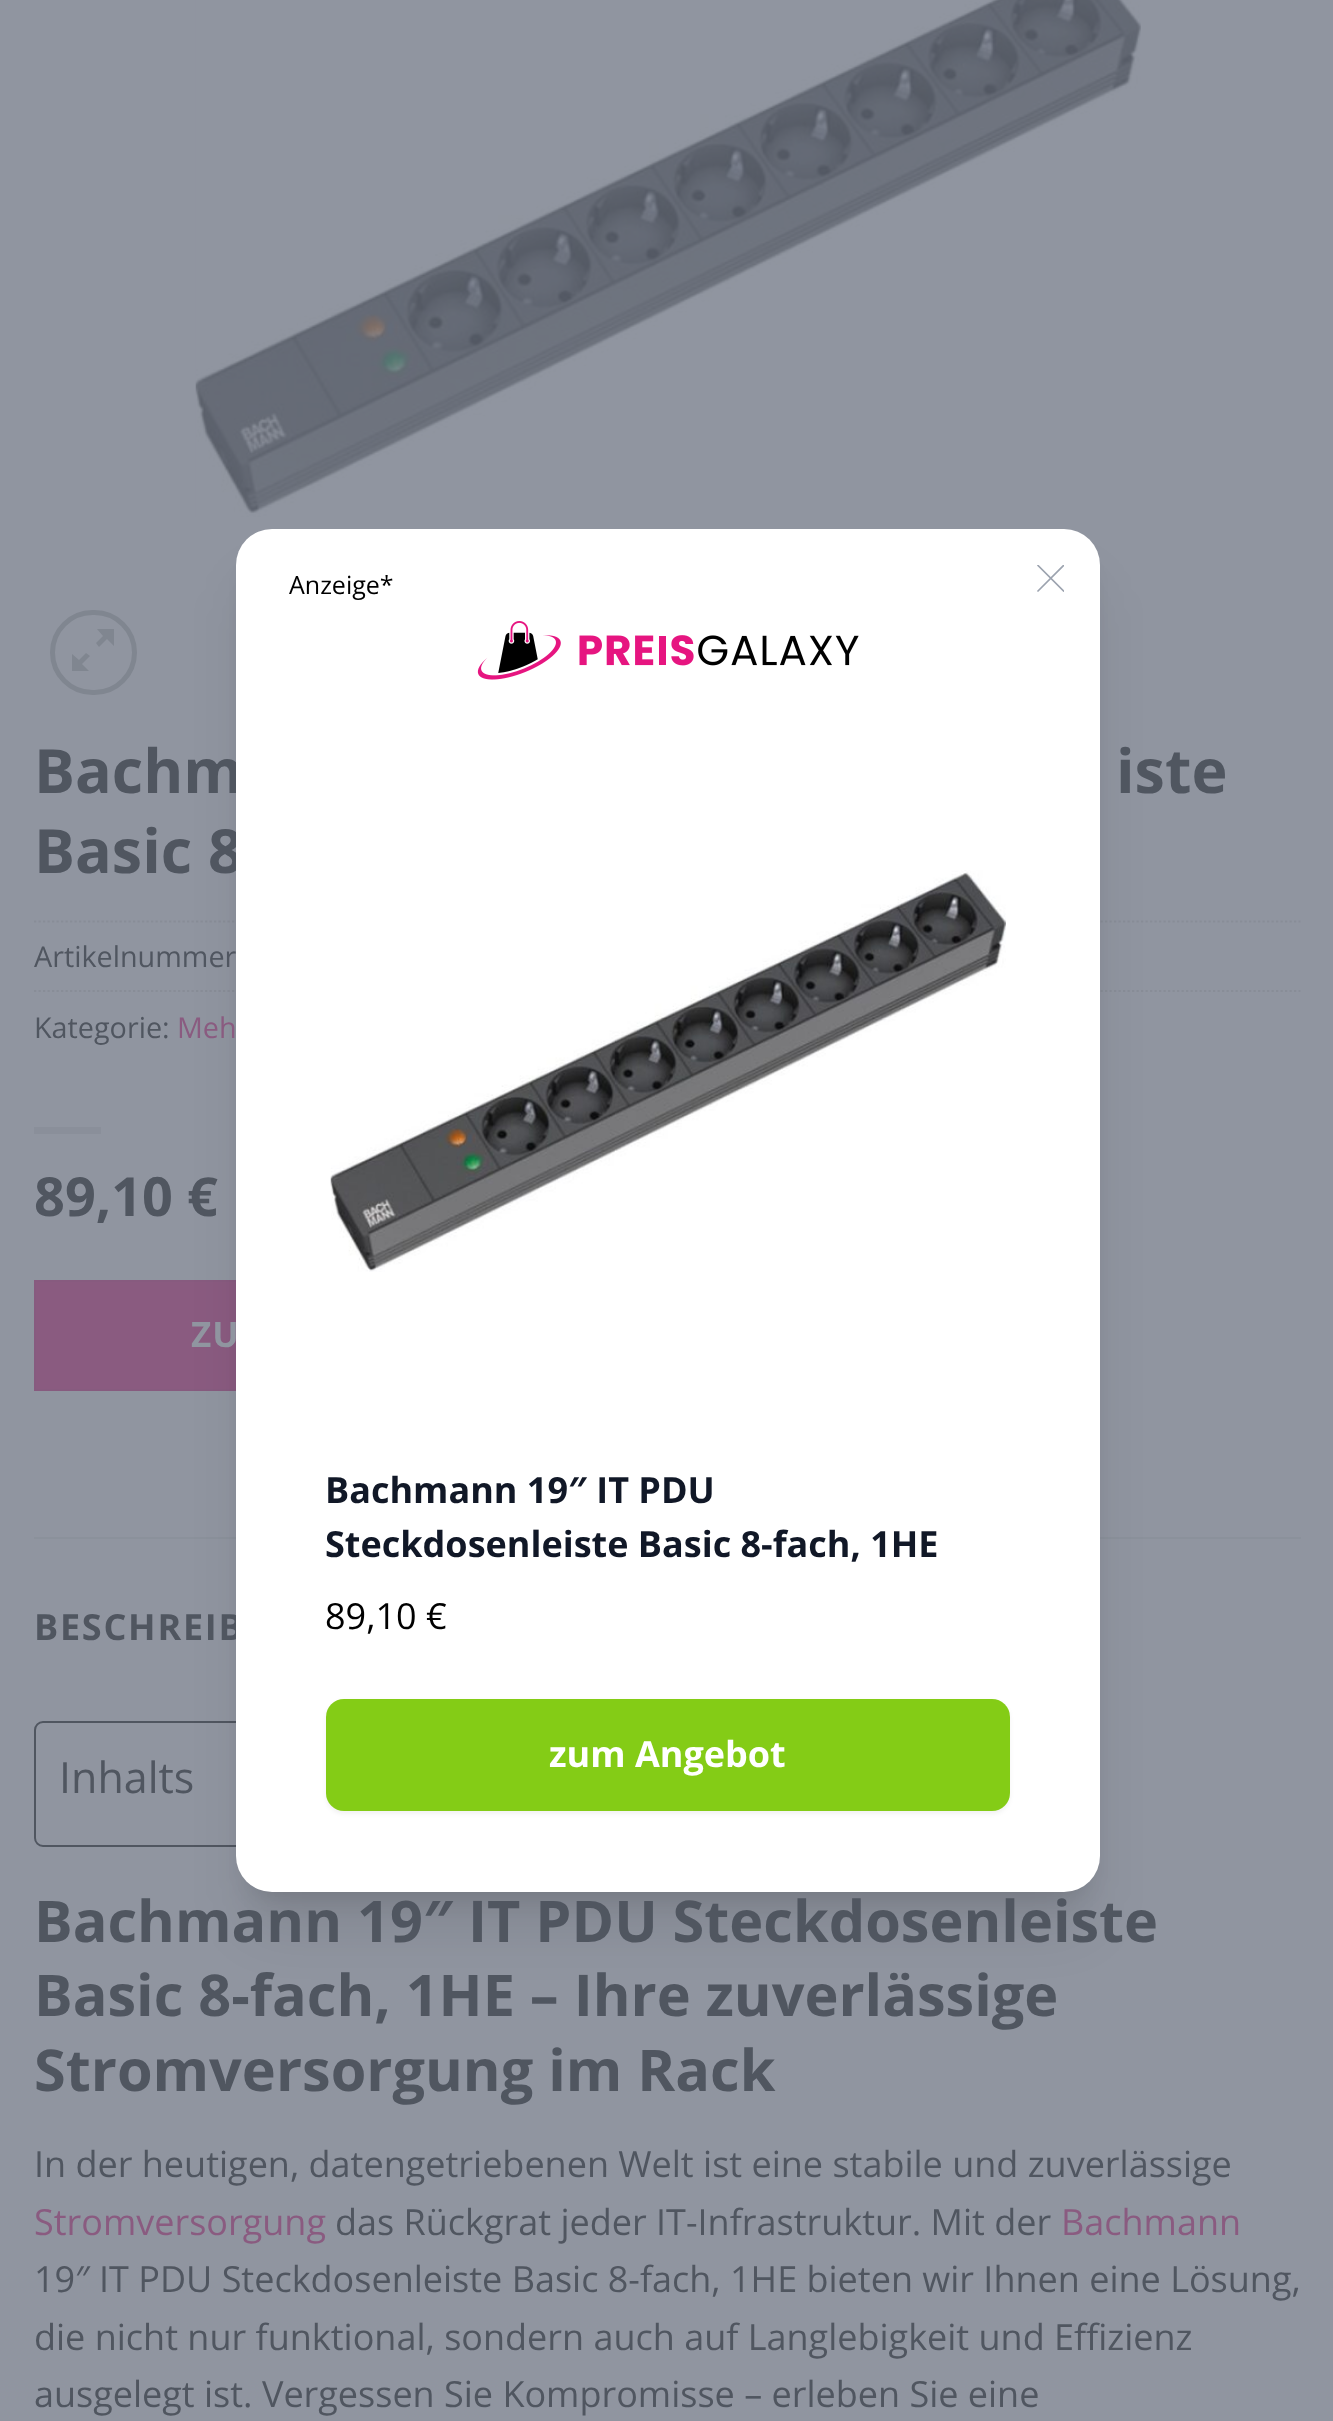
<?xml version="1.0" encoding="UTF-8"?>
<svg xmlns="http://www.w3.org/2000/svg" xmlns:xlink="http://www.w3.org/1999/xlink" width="1333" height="2421">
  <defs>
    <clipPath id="clip1"><rect x="1037" y="565" width="27" height="27" /></clipPath>
  </defs>
  <rect width="100%" height="100%" fill="#9095a0" />
  <path d="M 34 921.5 h 1266.5" fill="none" stroke="#888d97" stroke-width="2.2" stroke-dasharray="2.25 2.25" />
  <path d="M 34 991 h 1266.5" fill="none" stroke="#888d97" stroke-width="2.2" stroke-dasharray="2.25 2.25" />
  <rect x="36" y="1282" width="200" height="107" fill="#8a5b80" />
  <rect x="35" y="1281" width="673" height="109" fill="none" stroke="#875b7f" stroke-width="2" />
  <rect x="34" y="1537" width="1267" height="2" fill="#8b919b" />
  <rect x="35" y="1722" width="329" height="124" rx="8" fill="none" stroke="#505660" stroke-width="2" />
  <rect x="250" y="560" width="837" height="1337" rx="23" fill="#000000" fill-opacity="0.1" filter="blur(11px)" />
  <image x="195" y="0" width="946" height="517" xlink:href="image3.png" />
  <rect x="248" y="585" width="841" height="1341" rx="25" fill="#000000" fill-opacity="0.1" filter="blur(28px)" />
  <rect x="52.5" y="612.5" width="82" height="80" rx="40" fill="none" stroke="#808690" stroke-width="5" />
  <path d="M 114 629 v 17 l -7 -7 l -8 8 l -3 -4 l 7 -7 l -6 -7 z m -24 27 l -8 8 l 7 7 h -17 v -17 l 7 6 l 7 -7 z" fill="#808690" />
  <rect x="34" y="1127" width="67" height="7" fill="#8a8f9a" />
  <text x="34" y="793" style="font-family: Open Sans; font-size: 61px; font-weight: bold; fill: #505660">Bachm</text>
  <text x="1116" y="793" style="font-family: Open Sans; font-size: 61px; font-weight: bold; fill: #505660">iste</text>
  <text x="34" y="873" style="font-family: Open Sans; font-size: 61px; font-weight: bold; fill: #505660">Basic 8</text>
  <text x="34" y="967" style="font-family: Open Sans; font-size: 28.75px; fill: #505660">Artikelnummer</text>
  <text x="34" y="1038" style="font-family: Open Sans; font-size: 28.75px; fill: #505660">Kategorie:</text>
  <text x="177" y="1038" style="font-family: Open Sans; font-size: 28.75px; fill: #8a5b80">Meh</text>
  <text x="34" y="1216" style="font-family: Open Sans; font-size: 54px; font-weight: bold; fill: #505660">89,10 €</text>
  <text x="191" y="1347" style="font-family: Open Sans; font-size: 35px; font-weight: bold; letter-spacing: 1px; fill: #9095a0">ZU</text>
  <text x="34" y="1640" style="font-family: Open Sans; font-size: 36px; font-weight: bold; letter-spacing: 1.75px; fill: #505660">BESCHREIB</text>
  <rect x="236" y="529" width="864" height="1363" rx="36" fill="#ffffff" />
  <g clip-path="url(#clip1)">
    <path d="M 1038 591 l 25.5 -25.5 m -25.5 0 l 25.5 25.5" fill="none" stroke="#9ca3af" stroke-width="1.7" stroke-linecap="round" stroke-linejoin="round" />
  </g>
  <text x="289" y="594" style="font-family: Open Sans; font-size: 25px; fill: #000000">Anzeige*</text>
  <rect x="326" y="1701" width="684" height="113" rx="18" fill="#000000" fill-opacity="0.05" filter="blur(2px)" />
  <rect x="326" y="1699" width="684" height="112" rx="18" fill="#84cc16" />
  <text x="549" y="1767" style="font-family: Open Sans; font-size: 36px; font-weight: bold; fill: #ffffff">zum Angebot</text>
  <text x="325" y="1629" style="font-family: Open Sans; font-size: 36px; fill: #000000">89,10 €</text>
  <text x="325" y="1557" style="font-family: Open Sans; font-size: 36px; font-weight: bold; fill: #111827">Steckdosenleiste Basic 8-fach, 1HE</text>
  <text x="325" y="1503" style="font-family: Open Sans; font-size: 36px; font-weight: bold; fill: #111827">Bachmann 19″ IT PDU</text>
  <image x="330" y="870" width="676" height="402" xlink:href="image2.png" />
  <image x="477" y="621" width="382" height="59" xlink:href="image1.png" />
  <text x="59" y="1793" style="font-family: Open Sans; font-size: 43px; fill: #505660">Inhalts</text>
  <text x="34" y="1942" style="font-family: Open Sans; font-size: 57.6px; font-weight: bold; fill: #505660">Bachmann 19″ IT PDU Steckdosenleiste</text>
  <text x="34" y="2016" style="font-family: Open Sans; font-size: 57.6px; font-weight: bold; fill: #505660">Basic 8-fach, 1HE – Ihre zuverlässige</text>
  <text x="34" y="2091" style="font-family: Open Sans; font-size: 57.6px; font-weight: bold; fill: #505660">Stromversorgung im Rack</text>
  <text x="34" y="2177" style="font-family: Open Sans; font-size: 36px; fill: #505660">In der heutigen, datengetriebenen Welt ist eine stabile und zuverlässige</text>
  <text x="34" y="2235" style="font-family: Open Sans; font-size: 36px; fill: #8a5b80">Stromversorgung</text>
  <text x="335" y="2235" style="font-family: Open Sans; font-size: 36px; fill: #505660">das Rückgrat jeder IT-Infrastruktur. Mit der</text>
  <text x="1061" y="2235" style="font-family: Open Sans; font-size: 36px; fill: #8a5b80">Bachmann</text>
  <text x="34" y="2292" style="font-family: Open Sans; font-size: 36px; fill: #505660">19″ IT PDU Steckdosenleiste Basic 8-fach, 1HE bieten wir Ihnen eine Lösung,</text>
  <text x="34" y="2350" style="font-family: Open Sans; font-size: 36px; fill: #505660">die nicht nur funktional, sondern auch auf Langlebigkeit und Effizienz</text>
  <text x="34" y="2407" style="font-family: Open Sans; font-size: 36px; fill: #505660">ausgelegt ist. Vergessen Sie Kompromisse – erleben Sie eine</text>
</svg>
